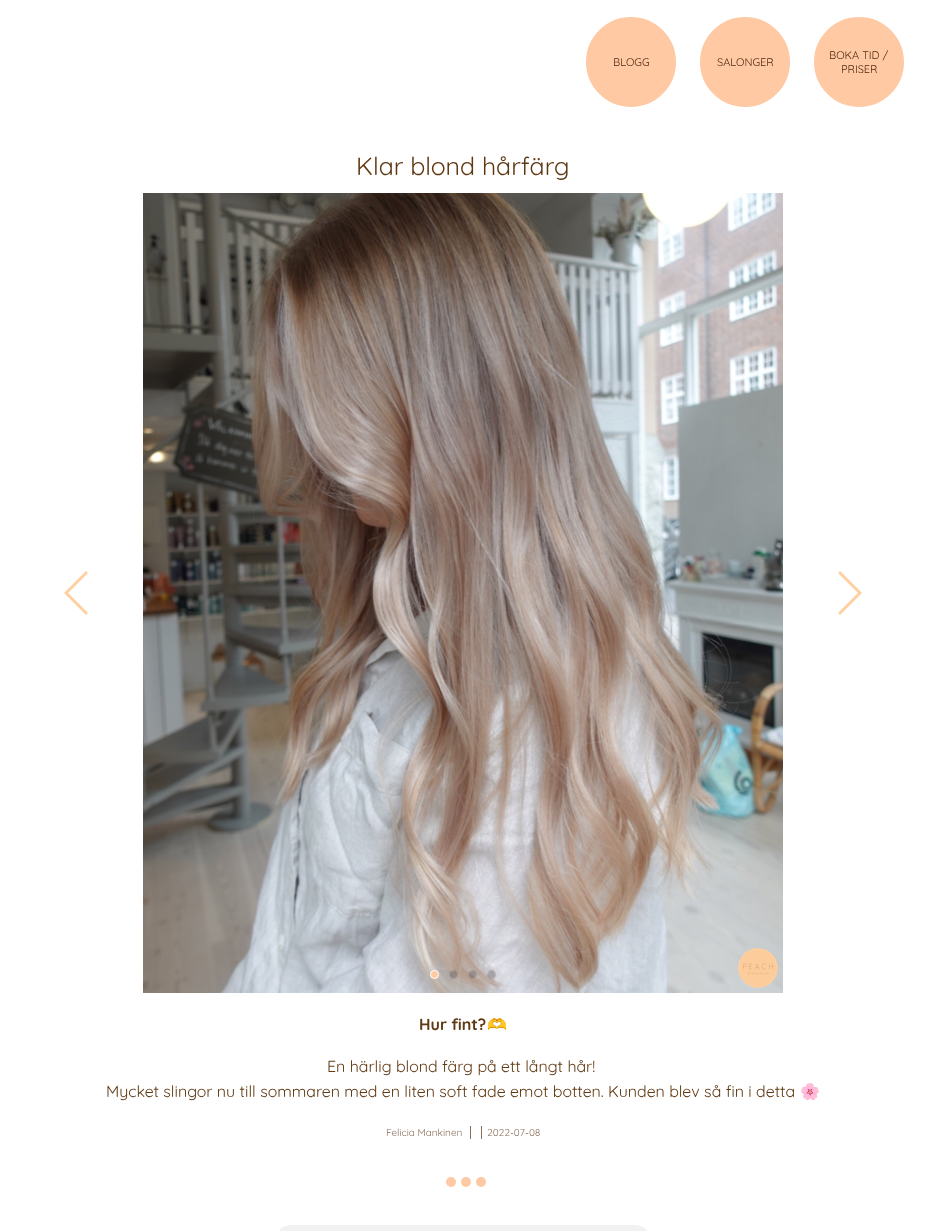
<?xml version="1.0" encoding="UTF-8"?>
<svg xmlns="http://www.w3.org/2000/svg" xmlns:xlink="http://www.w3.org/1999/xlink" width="926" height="1231">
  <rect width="100%" height="100%" fill="#ffffff" />
  <circle cx="631" cy="62" r="46" fill="#ffc9a3" stroke="#ffffff" stroke-width="2" />
  <circle cx="745" cy="62" r="46" fill="#ffc9a3" stroke="#ffffff" stroke-width="2" />
  <circle cx="859" cy="62" r="46" fill="#ffc9a3" stroke="#ffffff" stroke-width="2" />
  <path d="M 64 593 l 22 -22 l 2 2 l -20 20 l 20 20 l -2 2 z" fill="#ffcfa0" />
  <image x="143" y="193" width="640" height="800" xlink:href="image1.png" />
  <path d="M 862 593 l -22 22 l -2 -2 l 20 -20 l -20 -20 l 2 -2 z" fill="#ffcfa0" />
  <circle cx="434.5" cy="974.5" r="4" fill="#ffc9a2" stroke="#ffffff" />
  <circle cx="453.5" cy="974.5" r="4.5" fill="#000000" fill-opacity="0.2" />
  <circle cx="453.5" cy="974.5" r="4" fill="none" stroke="#ffffff" stroke-opacity="0.2" />
  <circle cx="472.5" cy="974.5" r="4.5" fill="#000000" fill-opacity="0.2" />
  <circle cx="472.5" cy="974.5" r="4" fill="none" stroke="#ffffff" stroke-opacity="0.2" />
  <circle cx="491.5" cy="974.5" r="4.5" fill="#000000" fill-opacity="0.2" />
  <circle cx="491.5" cy="974.5" r="4" fill="none" stroke="#ffffff" stroke-opacity="0.2" />
  <rect x="470" y="1126" width="1" height="13" fill="#8a705c" />
  <rect x="481" y="1126" width="1" height="13" fill="#8a705c" />
  <circle cx="451" cy="1182" r="5" fill="#ffc9a3" />
  <circle cx="466" cy="1182" r="5" fill="#ffc9a3" />
  <circle cx="481" cy="1182" r="5" fill="#ffc9a3" />
  <rect x="278" y="1225" width="370" height="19" rx="13" fill="#f1f1f1" />
  <text x="613" y="66" style="font-family: Quicksand; font-size: 11px; fill: #502810">BLOGG</text>
  <text x="717" y="66" style="font-family: Quicksand; font-size: 11px; fill: #502810">SALONGER</text>
  <text x="829" y="59" style="font-family: Quicksand; font-size: 11px; fill: #502810">BOKA TID /</text>
  <text x="841" y="73" style="font-family: Quicksand; font-size: 11px; fill: #502810">PRISER</text>
  <text x="356" y="175" style="font-family: Quicksand; font-size: 25px; fill: #603913">Klar blond hårfärg</text>
  <text x="419" y="1030" style="font-family: Quicksand; font-size: 16px; font-weight: bold; fill: #603913">Hur fint?</text>
  <text x="487" y="1030" style="font-family: Noto Color Emoji; font-size: 16px; font-weight: bold; fill: #603913">🫶</text>
  <text x="327" y="1072" style="font-family: Quicksand; font-size: 16px; fill: #603913">En härlig blond färg på ett långt hår!</text>
  <text x="106" y="1097" style="font-family: Quicksand; font-size: 16px; fill: #603913">Mycket slingor nu till sommaren med en liten soft fade emot botten. Kunden blev så fin i detta</text>
  <text x="800" y="1097" style="font-family: Noto Color Emoji; font-size: 16px; fill: #603913">🌸</text>
  <text x="386" y="1136" style="font-family: Quicksand; font-size: 10px; fill: #8a705c">Felicia Mankinen</text>
  <text x="487" y="1136" style="font-family: Quicksand; font-size: 10px; fill: #8a705c">2022-07-08</text>
</svg>
